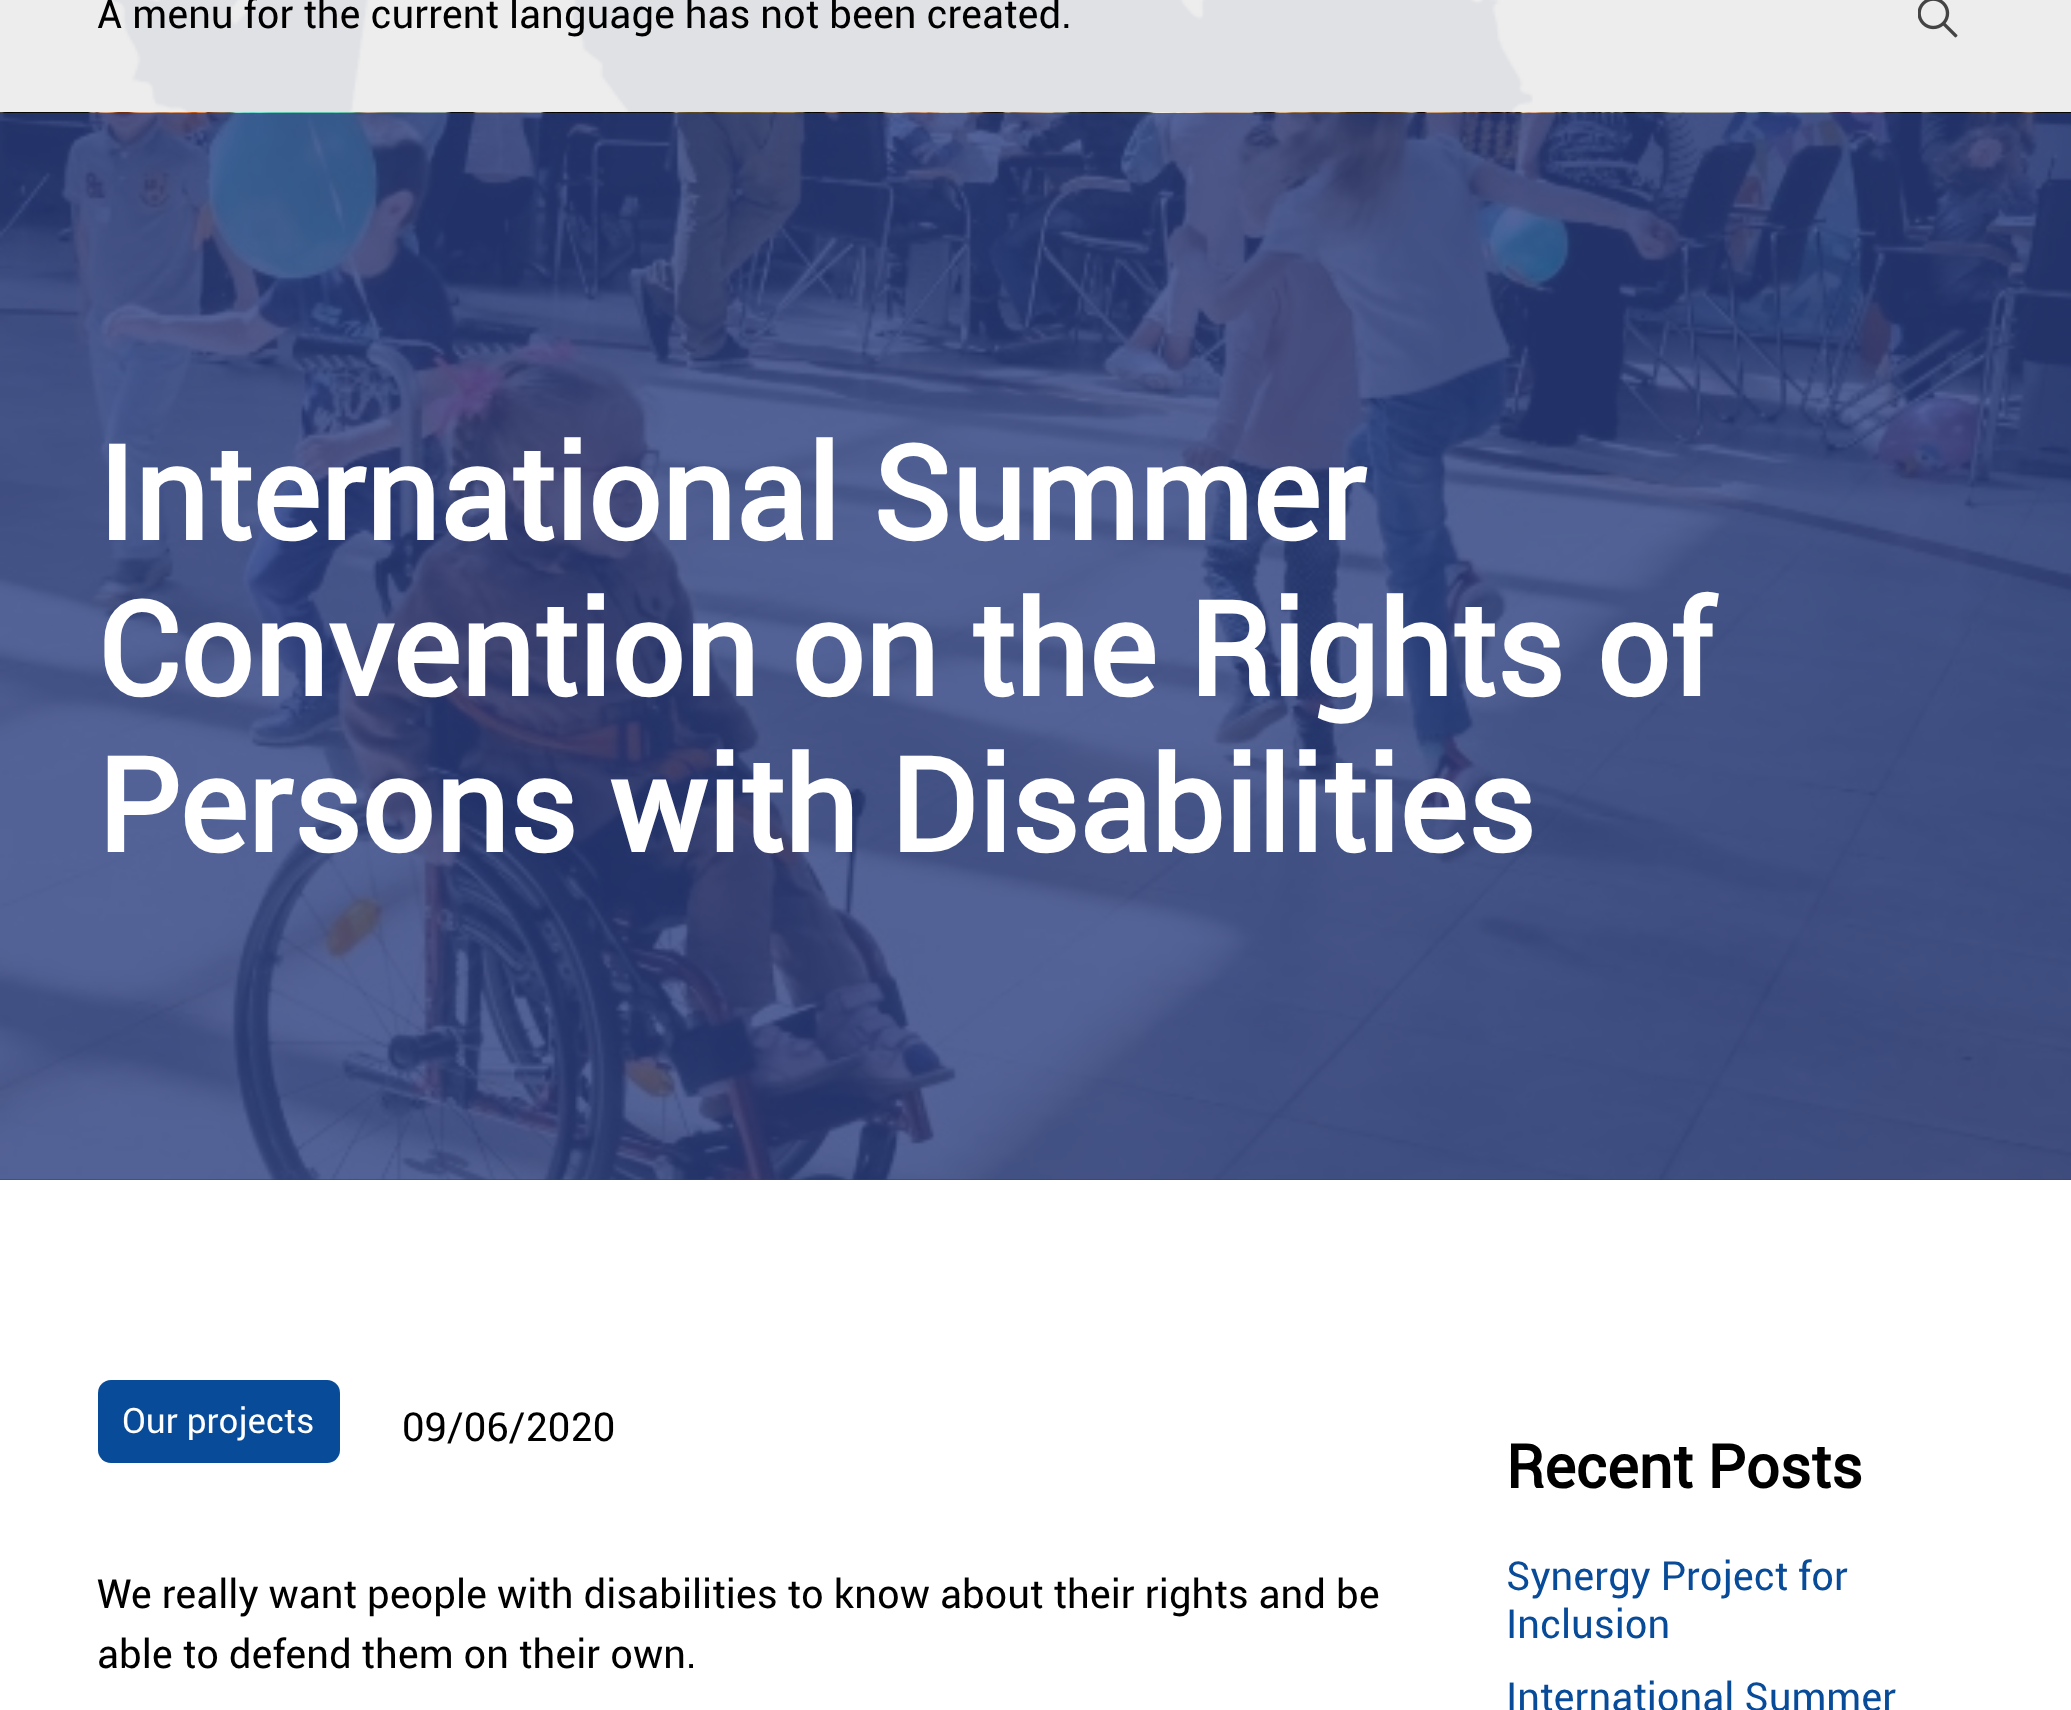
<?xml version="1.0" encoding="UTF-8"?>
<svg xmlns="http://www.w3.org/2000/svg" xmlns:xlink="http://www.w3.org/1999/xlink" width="2071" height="1710">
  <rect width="100%" height="100%" fill="#ffffff" />
  <rect width="2071" height="112" fill="#ededed" />
  <image x="112" y="0" width="1421" height="112" xlink:href="image1.png" />
  <image x="1918" y="0" width="40" height="38" xlink:href="image2.png" />
  <rect y="1179" width="2071" height="1" fill="#2a3e82" />
  <image x="0" y="112" width="2071" height="1068" xlink:href="image3.png" />
  <rect x="98" y="1380" width="242" height="83" rx="13" fill="#084b99" />
  <text x="97" y="28" style="font-family: Roboto; font-size: 40px; fill: #000000">A menu for the current language has not been created.</text>
  <text x="97" y="540" style="font-family: Roboto; font-size: 130px; font-weight: bold; fill: #ffffff">International Summer</text>
  <text x="97" y="696" style="font-family: Roboto; font-size: 130px; font-weight: bold; fill: #ffffff">Convention on the Rights of</text>
  <text x="97" y="852" style="font-family: Roboto; font-size: 130px; font-weight: bold; fill: #ffffff">Persons with Disabilities</text>
  <text x="122" y="1433" style="font-family: Roboto; font-size: 35px; fill: #ffffff">Our projects</text>
  <text x="402" y="1441" style="font-family: Roboto; font-size: 40px; fill: #000000">09/06/2020</text>
  <text x="97" y="1608" style="font-family: Roboto; font-size: 40px; fill: #000000">We really want people with disabilities to know about their rights and be</text>
  <text x="97" y="1668" style="font-family: Roboto; font-size: 40px; fill: #000000">able to defend them on their own.</text>
  <text x="1506" y="1488" style="font-family: Roboto; font-size: 60px; font-weight: bold; fill: #000000">Recent Posts</text>
  <text x="1506" y="1590" style="font-family: Roboto; font-size: 40px; fill: #084b99">Synergy Project for</text>
  <text x="1506" y="1638" style="font-family: Roboto; font-size: 40px; fill: #084b99">Inclusion</text>
  <text x="1506" y="1711" style="font-family: Roboto; font-size: 40px; fill: #084b99">International Summer</text>
</svg>
